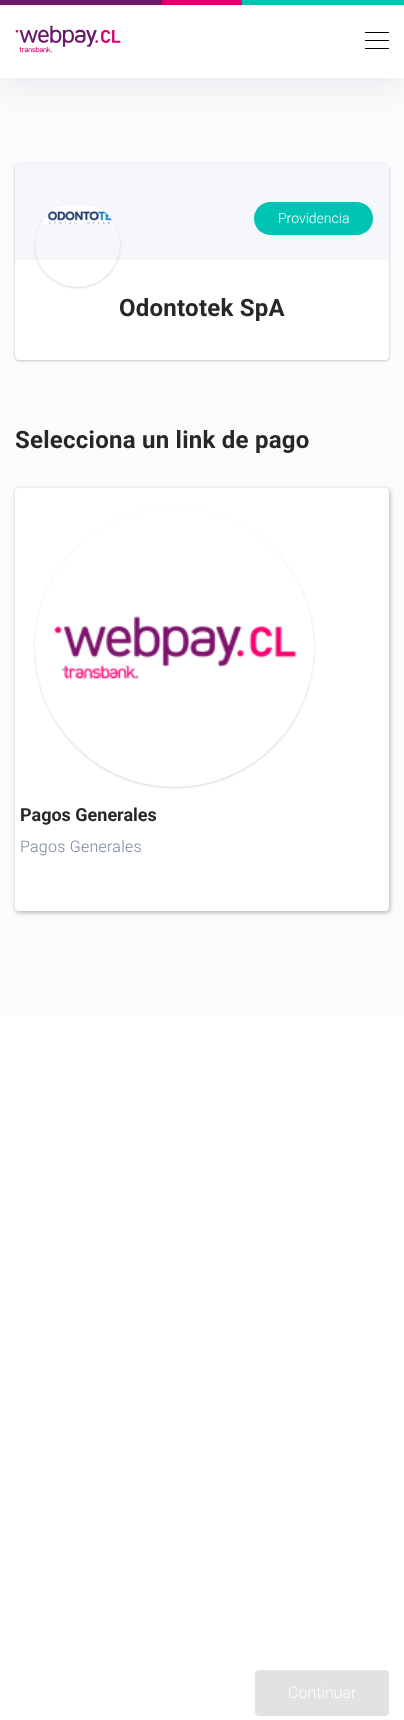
<?xml version="1.0" encoding="UTF-8"?>
<svg xmlns="http://www.w3.org/2000/svg" xmlns:xlink="http://www.w3.org/1999/xlink" width="404" height="1720">
  <defs>
    <clipPath id="clip1"><path d="M 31 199 h 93 v 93 h -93 z m 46.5 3 c 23.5 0 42.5 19 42.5 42.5 c 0 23.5 -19 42.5 -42.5 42.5 c -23.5 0 -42.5 -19 -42.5 -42.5 c 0 -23.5 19 -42.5 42.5 -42.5 z" clip-rule="evenodd" /></clipPath>
    <clipPath id="clip2"><path d="M 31 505 h 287 v 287 h -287 z m 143.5 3 c 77 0 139.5 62.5 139.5 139.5 c 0 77 -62.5 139.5 -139.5 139.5 c -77 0 -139.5 -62.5 -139.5 -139.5 c 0 -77 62.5 -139.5 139.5 -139.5 z" clip-rule="evenodd" /></clipPath>
  </defs>
  <rect width="100%" height="100%" fill="#ffffff" />
  <rect y="78" width="404" height="937" fill="#fafbfc" />
  <rect y="10" width="404" height="78" fill="#8a9ba5" fill-opacity="0.15" filter="blur(15px)" />
  <rect y="5" width="404" height="73" fill="#ffffff" />
  <rect width="162" height="5" fill="#6b196b" />
  <rect x="162" width="80" height="5" fill="#d5006c" />
  <rect x="242" width="162" height="5" fill="#00c4b3" />
  <image x="15" y="25" width="106" height="28" xlink:href="image1.png" />
  <rect x="365" y="48" width="24" height="1" fill="#000000" />
  <rect x="365" y="32" width="24" height="1" fill="#000000" />
  <rect x="365" y="40" width="24" height="1" fill="#000000" />
  <rect x="15" y="164" width="374" height="196" rx="4" fill="#0e1520" fill-opacity="0.12" filter="blur(1px)" />
  <rect x="15" y="165" width="374" height="196" rx="4" fill="#0e1520" fill-opacity="0.18" filter="blur(1px)" />
  <rect x="15" y="164" width="374" height="196" rx="4" fill="#ffffff" />
  <rect x="15" y="164" width="374" height="96" fill="#f5f7fa" />
  <g clip-path="url(#clip1)">
    <rect x="35" y="203" width="85" height="85" rx="42.5" fill="#0e1520" fill-opacity="0.18" filter="blur(1px)" />
  </g>
  <image x="40" y="206" width="73" height="18" xlink:href="image2.png" />
  <rect x="254" y="202" width="119" height="33" rx="16.5" fill="#00c4b3" />
  <rect x="16" y="489" width="374" height="423" rx="4" fill="#000000" fill-opacity="0.04" filter="blur(2px)" />
  <rect x="16" y="489" width="374" height="423" rx="4" fill="#0e1520" fill-opacity="0.12" filter="blur(2px)" />
  <rect x="16" y="490" width="374" height="423" rx="4" fill="#0e1520" fill-opacity="0.18" filter="blur(2px)" />
  <rect x="15" y="488" width="374" height="423" rx="4" fill="#ffffff" />
  <g clip-path="url(#clip2)">
    <rect x="35" y="509" width="279" height="279" rx="139.5" fill="#0e1520" fill-opacity="0.18" filter="blur(1px)" />
  </g>
  <image x="54" y="616" width="243" height="63" xlink:href="image3.png" />
  <rect x="255.5" y="1670.5" width="133" height="45" rx="3.5" fill="#e2e2e2" stroke="#e2e2e2" />
  <text x="278" y="223" style="font-family: Roboto; font-size: 14px; font-weight: 300; fill: #ffffff">Providencia</text>
  <text x="119" y="316" style="font-family: Roboto; font-size: 24px; font-weight: bold; letter-spacing: 0.25px; fill: #272727">Odontotek SpA</text>
  <text x="15" y="448" style="font-family: Roboto; font-size: 24px; font-weight: bold; letter-spacing: 0.25px; fill: #272727">Selecciona un link de pago</text>
  <text x="20" y="821" style="font-family: Roboto; font-size: 18px; font-weight: bold; fill: #272727">Pagos Generales</text>
  <text x="20" y="852" style="font-family: Roboto; font-size: 16px; font-weight: 300; letter-spacing: 0.25px; fill: #77869e">Pagos Generales</text>
  <text x="288" y="1698" style="font-family: Roboto; font-size: 16px; font-weight: 300; fill: #ffffff">Continuar</text>
</svg>
